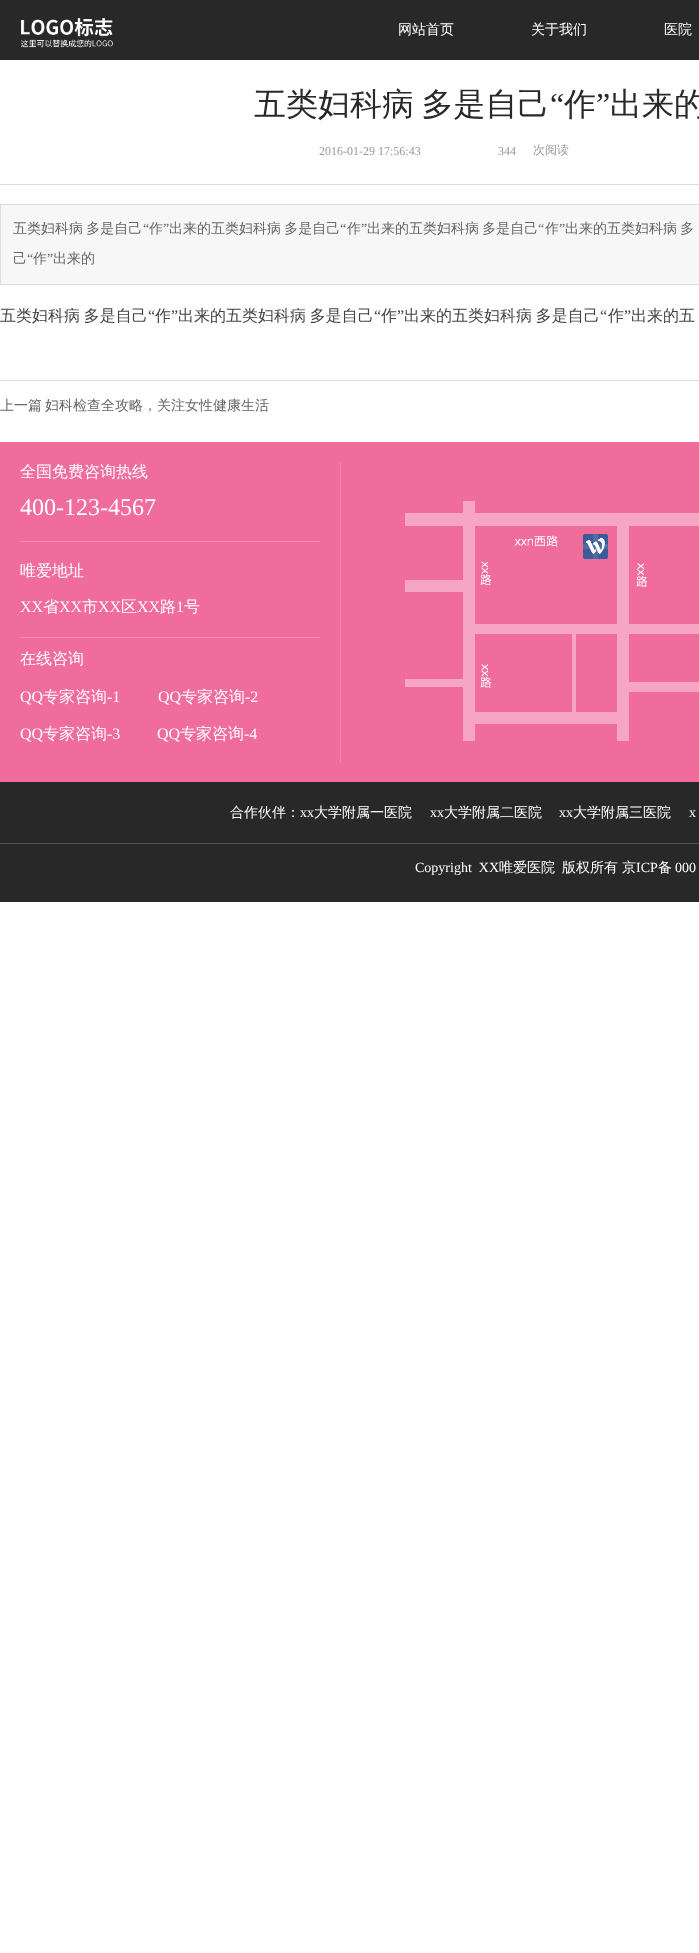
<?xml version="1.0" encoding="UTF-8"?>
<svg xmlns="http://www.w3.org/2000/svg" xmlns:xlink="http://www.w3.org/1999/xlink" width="699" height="1953">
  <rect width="100%" height="100%" fill="#ffffff" />
  <rect width="699" height="60" fill="#282828" />
  <image x="21" y="18" width="92" height="30" xlink:href="image1.png" />
  <rect y="184" width="699" height="1" fill="#dddddd" />
  <rect x="0.5" y="204.5" width="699" height="80" fill="#f7f7f7" stroke="#dddddd" />
  <rect y="380" width="699" height="1" fill="#dddddd" />
  <rect y="442" width="699" height="340" fill="#f06c9b" />
  <image x="405" y="501" width="294" height="240" xlink:href="image2.png" />
  <rect x="20" y="541" width="300" height="1" fill="#f389af" />
  <rect x="20" y="637" width="300" height="1" fill="#f389af" />
  <rect x="340" y="463" width="1" height="300" fill="#f389af" />
  <rect y="782" width="699" height="120" fill="#282828" />
  <rect y="843" width="699" height="1" fill="#535353" />
  <text x="398" y="34" style="font-family: WenQuanYi Zen Hei; font-size: 14px; font-weight: 500; fill: #ffffff">网站首页</text>
  <text x="531" y="34" style="font-family: WenQuanYi Zen Hei; font-size: 14px; font-weight: 500; fill: #ffffff">关于我们</text>
  <text x="664" y="34" style="font-family: WenQuanYi Zen Hei; font-size: 14px; font-weight: 500; fill: #ffffff">医院</text>
  <text x="254" y="115" word-spacing="-2" style="font-family: WenQuanYi Zen Hei; font-size: 32px; font-weight: 500; fill: #292929">五类妇科病 多是自己</text>
  <text x="550" y="115" style="font-family: Liberation Serif; font-size: 32px; fill: #292929">“</text>
  <text x="564" y="115" style="font-family: WenQuanYi Zen Hei; font-size: 32px; font-weight: 500; fill: #292929">作</text>
  <text x="596" y="115" style="font-family: Liberation Serif; font-size: 32px; fill: #292929">”</text>
  <text x="610" y="115" style="font-family: WenQuanYi Zen Hei; font-size: 32px; font-weight: 500; fill: #292929">出来的</text>
  <text x="319" y="155" style="font-family: Liberation Serif; font-size: 12px; fill: #999999">2016-01-29 17:56:43</text>
  <text x="498" y="155" style="font-family: Liberation Serif; font-size: 12px; fill: #999999">344</text>
  <text x="533" y="154" style="font-family: WenQuanYi Zen Hei; font-size: 12px; font-weight: 500; fill: #999999">次阅读</text>
  <text x="13" y="233" word-spacing="-1" style="font-family: WenQuanYi Zen Hei; font-size: 14px; font-weight: 500; fill: #666666">五类妇科病 多是自己</text>
  <text x="143" y="233" style="font-family: Liberation Serif; font-size: 14px; fill: #666666">“</text>
  <text x="149" y="233" style="font-family: WenQuanYi Zen Hei; font-size: 14px; font-weight: 500; fill: #666666">作</text>
  <text x="163" y="233" style="font-family: Liberation Serif; font-size: 14px; fill: #666666">”</text>
  <text x="169" y="233" word-spacing="-1" style="font-family: WenQuanYi Zen Hei; font-size: 14px; font-weight: 500; fill: #666666">出来的五类妇科病 多是自己</text>
  <text x="340" y="233" style="font-family: Liberation Serif; font-size: 14px; fill: #666666">“</text>
  <text x="347" y="233" style="font-family: WenQuanYi Zen Hei; font-size: 14px; font-weight: 500; fill: #666666">作</text>
  <text x="361" y="233" style="font-family: Liberation Serif; font-size: 14px; fill: #666666">”</text>
  <text x="367" y="233" word-spacing="-1" style="font-family: WenQuanYi Zen Hei; font-size: 14px; font-weight: 500; fill: #666666">出来的五类妇科病 多是自己</text>
  <text x="538" y="233" style="font-family: Liberation Serif; font-size: 14px; fill: #666666">“</text>
  <text x="545" y="233" style="font-family: WenQuanYi Zen Hei; font-size: 14px; font-weight: 500; fill: #666666">作</text>
  <text x="559" y="233" style="font-family: Liberation Serif; font-size: 14px; fill: #666666">”</text>
  <text x="565" y="233" word-spacing="-1" style="font-family: WenQuanYi Zen Hei; font-size: 14px; font-weight: 500; fill: #666666">出来的五类妇科病 多</text>
  <text x="13" y="263" style="font-family: WenQuanYi Zen Hei; font-size: 14px; font-weight: 500; fill: #666666">己</text>
  <text x="27" y="263" style="font-family: Liberation Serif; font-size: 14px; fill: #666666">“</text>
  <text x="33" y="263" style="font-family: WenQuanYi Zen Hei; font-size: 14px; font-weight: 500; fill: #666666">作</text>
  <text x="47" y="263" style="font-family: Liberation Serif; font-size: 14px; fill: #666666">”</text>
  <text x="53" y="263" style="font-family: WenQuanYi Zen Hei; font-size: 14px; font-weight: 500; fill: #666666">出来的</text>
  <text x="0" y="321" word-spacing="-1" style="font-family: WenQuanYi Zen Hei; font-size: 16px; font-weight: 500; fill: #444444">五类妇科病 多是自己</text>
  <text x="148" y="321" style="font-family: Liberation Serif; font-size: 16px; fill: #444444">“</text>
  <text x="155" y="321" style="font-family: WenQuanYi Zen Hei; font-size: 16px; font-weight: 500; fill: #444444">作</text>
  <text x="171" y="321" style="font-family: Liberation Serif; font-size: 16px; fill: #444444">”</text>
  <text x="178" y="321" word-spacing="-1" style="font-family: WenQuanYi Zen Hei; font-size: 16px; font-weight: 500; fill: #444444">出来的五类妇科病 多是自己</text>
  <text x="374" y="321" style="font-family: Liberation Serif; font-size: 16px; fill: #444444">“</text>
  <text x="381" y="321" style="font-family: WenQuanYi Zen Hei; font-size: 16px; font-weight: 500; fill: #444444">作</text>
  <text x="397" y="321" style="font-family: Liberation Serif; font-size: 16px; fill: #444444">”</text>
  <text x="404" y="321" word-spacing="-1" style="font-family: WenQuanYi Zen Hei; font-size: 16px; font-weight: 500; fill: #444444">出来的五类妇科病 多是自己</text>
  <text x="600" y="321" style="font-family: Liberation Serif; font-size: 16px; fill: #444444">“</text>
  <text x="608" y="321" style="font-family: WenQuanYi Zen Hei; font-size: 16px; font-weight: 500; fill: #444444">作</text>
  <text x="624" y="321" style="font-family: Liberation Serif; font-size: 16px; fill: #444444">”</text>
  <text x="631" y="321" word-spacing="-1" style="font-family: WenQuanYi Zen Hei; font-size: 16px; font-weight: 500; fill: #444444">出来的五</text>
  <text x="0" y="410" style="font-family: WenQuanYi Zen Hei; font-size: 14px; font-weight: 500; fill: #666666">上一篇</text>
  <text x="45" y="410" style="font-family: WenQuanYi Zen Hei; font-size: 14px; font-weight: 500; fill: #666666">妇科检查全攻略，关注女性健康生活</text>
  <text x="20" y="477" style="font-family: WenQuanYi Zen Hei; font-size: 16px; font-weight: 500; fill: #ffffff">全国免费咨询热线</text>
  <text x="20" y="515" style="font-family: Liberation Serif; font-size: 24px; fill: #ffffff">400-123-4567</text>
  <text x="20" y="576" style="font-family: WenQuanYi Zen Hei; font-size: 16px; font-weight: 500; fill: #ffffff">唯爱地址</text>
  <text x="20" y="612" style="font-family: Liberation Serif; font-size: 16px; fill: #ffffff">XX</text>
  <text x="43" y="612" style="font-family: WenQuanYi Zen Hei; font-size: 16px; font-weight: 500; fill: #ffffff">省</text>
  <text x="59" y="612" style="font-family: Liberation Serif; font-size: 16px; fill: #ffffff">XX</text>
  <text x="82" y="612" style="font-family: WenQuanYi Zen Hei; font-size: 16px; font-weight: 500; fill: #ffffff">市</text>
  <text x="98" y="612" style="font-family: Liberation Serif; font-size: 16px; fill: #ffffff">XX</text>
  <text x="121" y="612" style="font-family: WenQuanYi Zen Hei; font-size: 16px; font-weight: 500; fill: #ffffff">区</text>
  <text x="137" y="612" style="font-family: Liberation Serif; font-size: 16px; fill: #ffffff">XX</text>
  <text x="160" y="612" style="font-family: WenQuanYi Zen Hei; font-size: 16px; font-weight: 500; fill: #ffffff">路</text>
  <text x="176" y="612" style="font-family: Liberation Serif; font-size: 16px; fill: #ffffff">1</text>
  <text x="184" y="612" style="font-family: WenQuanYi Zen Hei; font-size: 16px; font-weight: 500; fill: #ffffff">号</text>
  <text x="20" y="664" style="font-family: WenQuanYi Zen Hei; font-size: 16px; font-weight: 500; fill: #ffffff">在线咨询</text>
  <text x="20" y="702" style="font-family: Liberation Serif; font-size: 16px; fill: #ffffff">QQ</text>
  <text x="43" y="702" style="font-family: WenQuanYi Zen Hei; font-size: 16px; font-weight: 500; fill: #ffffff">专家咨询</text>
  <text x="107" y="702" style="font-family: Liberation Serif; font-size: 16px; fill: #ffffff">-1</text>
  <text x="158" y="702" style="font-family: Liberation Serif; font-size: 16px; fill: #ffffff">QQ</text>
  <text x="181" y="702" style="font-family: WenQuanYi Zen Hei; font-size: 16px; font-weight: 500; fill: #ffffff">专家咨询</text>
  <text x="245" y="702" style="font-family: Liberation Serif; font-size: 16px; fill: #ffffff">-2</text>
  <text x="20" y="739" style="font-family: Liberation Serif; font-size: 16px; fill: #ffffff">QQ</text>
  <text x="43" y="739" style="font-family: WenQuanYi Zen Hei; font-size: 16px; font-weight: 500; fill: #ffffff">专家咨询</text>
  <text x="107" y="739" style="font-family: Liberation Serif; font-size: 16px; fill: #ffffff">-3</text>
  <text x="157" y="739" style="font-family: Liberation Serif; font-size: 16px; fill: #ffffff">QQ</text>
  <text x="180" y="739" style="font-family: WenQuanYi Zen Hei; font-size: 16px; font-weight: 500; fill: #ffffff">专家咨询</text>
  <text x="244" y="739" style="font-family: Liberation Serif; font-size: 16px; fill: #ffffff">-4</text>
  <text x="230" y="817" style="font-family: WenQuanYi Zen Hei; font-size: 14px; font-weight: 500; fill: #ffffff">合作伙伴：</text>
  <text x="300" y="817" style="font-family: Liberation Serif; font-size: 14px; fill: #ffffff">xx</text>
  <text x="314" y="817" style="font-family: WenQuanYi Zen Hei; font-size: 14px; font-weight: 500; fill: #ffffff">大学附属一医院</text>
  <text x="430" y="817" style="font-family: Liberation Serif; font-size: 14px; fill: #ffffff">xx</text>
  <text x="444" y="817" style="font-family: WenQuanYi Zen Hei; font-size: 14px; font-weight: 500; fill: #ffffff">大学附属二医院</text>
  <text x="559" y="817" style="font-family: Liberation Serif; font-size: 14px; fill: #ffffff">xx</text>
  <text x="573" y="817" style="font-family: WenQuanYi Zen Hei; font-size: 14px; font-weight: 500; fill: #ffffff">大学附属三医院</text>
  <text x="689" y="817" style="font-family: Liberation Serif; font-size: 14px; fill: #ffffff">x</text>
  <text x="415" y="872" style="font-family: Liberation Serif; font-size: 14px; fill: #ffffff" xml:space="preserve">Copyright  XX</text>
  <text x="499" y="872" style="font-family: WenQuanYi Zen Hei; font-size: 14px; font-weight: 500; fill: #ffffff">唯爱医院</text>
  <text x="562" y="872" style="font-family: WenQuanYi Zen Hei; font-size: 14px; font-weight: 500; fill: #ffffff">版权所有</text>
  <text x="622" y="872" style="font-family: WenQuanYi Zen Hei; font-size: 14px; font-weight: 500; fill: #ffffff">京</text>
  <text x="636" y="872" style="font-family: Liberation Serif; font-size: 14px; fill: #ffffff">ICP</text>
  <text x="658" y="872" style="font-family: WenQuanYi Zen Hei; font-size: 14px; font-weight: 500; fill: #ffffff">备</text>
  <text x="675" y="872" style="font-family: Liberation Serif; font-size: 14px; fill: #ffffff">000</text>
</svg>
